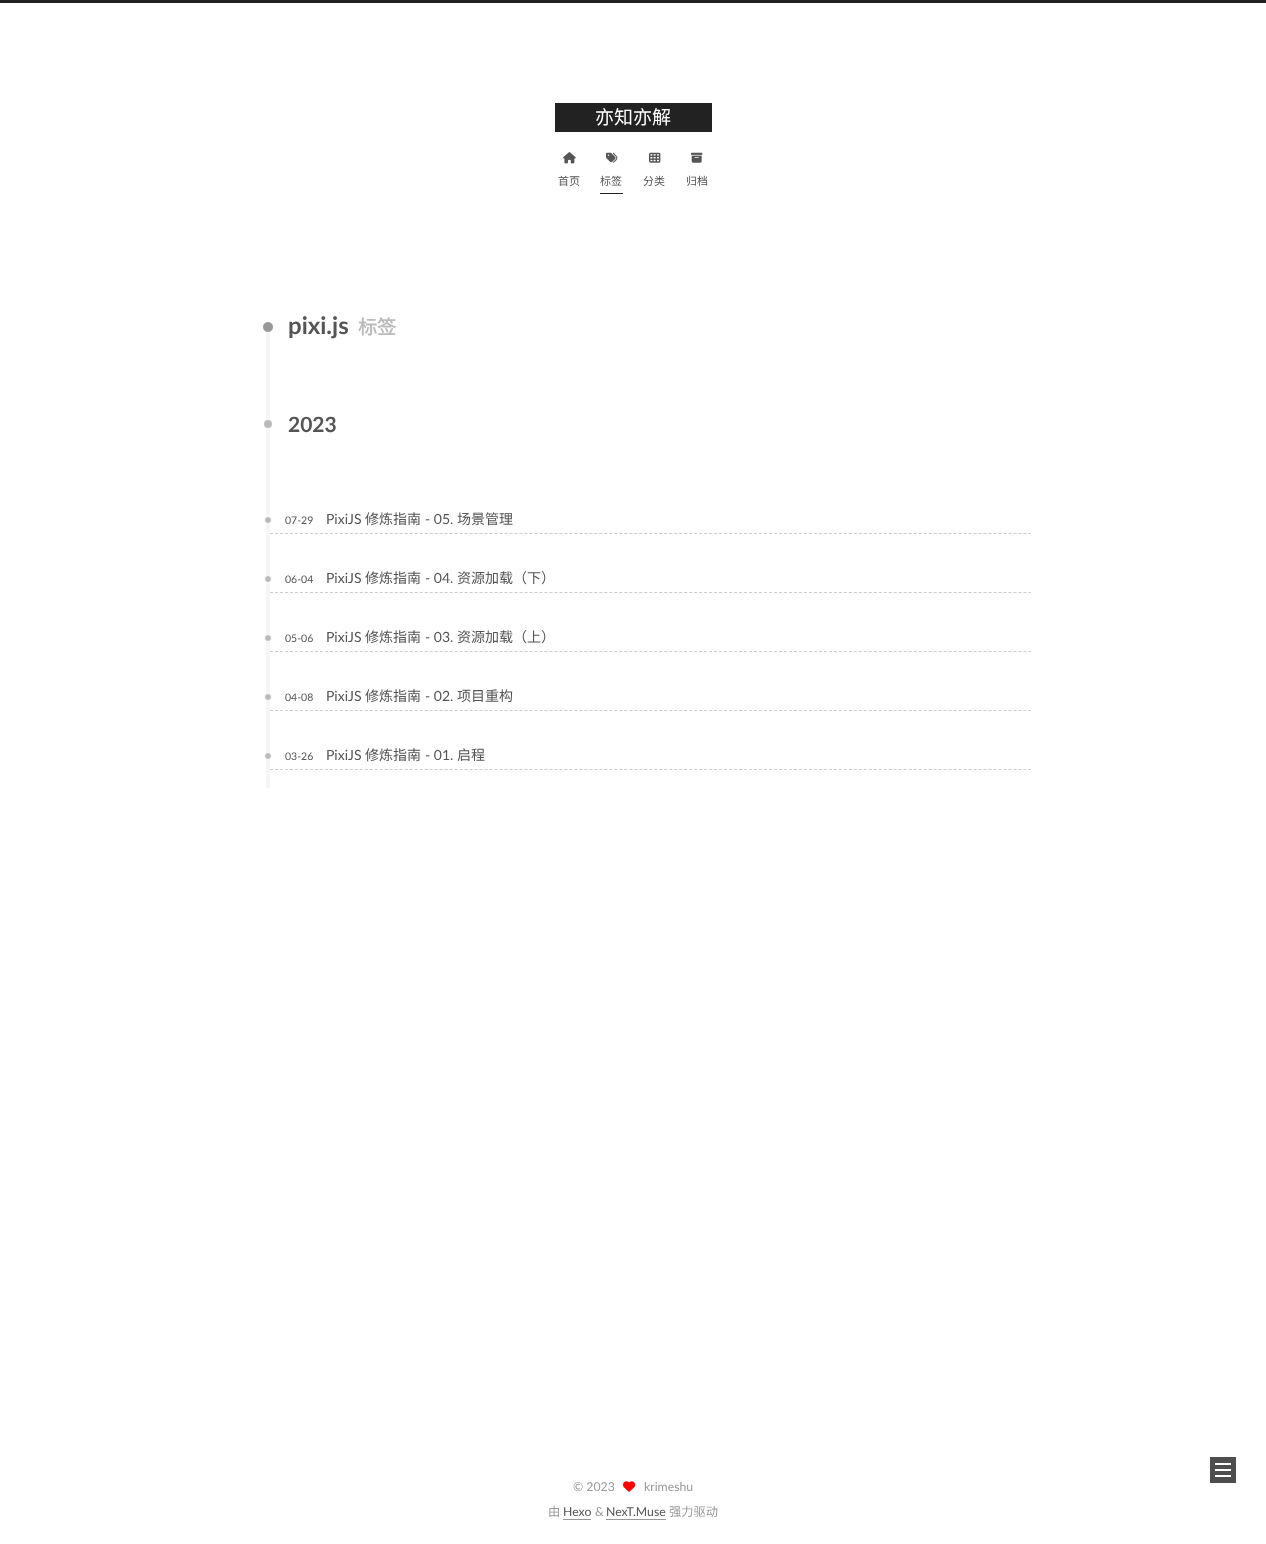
<?xml version="1.0" encoding="UTF-8"?>
<svg xmlns="http://www.w3.org/2000/svg" xmlns:xlink="http://www.w3.org/1999/xlink" width="1266" height="1544">
  <rect width="100%" height="100%" fill="#ffffff" />
  <rect width="1266" height="3" fill="#222222" />
  <rect x="555" y="103" width="157" height="29" fill="#222222" />
  <image x="563" y="152" width="13" height="12" xlink:href="image1.png" />
  <rect x="600" y="193" width="23" height="1" fill="#222222" />
  <image x="606" y="152" width="12" height="11" xlink:href="image2.png" />
  <image x="649" y="152" width="12" height="11" xlink:href="image3.png" />
  <image x="691" y="152" width="12" height="11" xlink:href="image4.png" />
  <rect x="266" y="325" width="4" height="463" fill="#f5f5f5" />
  <circle cx="268" cy="327" r="5.5" fill="#999999" stroke="#ffffff" />
  <circle cx="268" cy="424" r="4" fill="#bbbbbb" />
  <path d="M 270 533.5 h 761" fill="none" stroke="#cccccc" stroke-dasharray="3 1.99" />
  <circle cx="268" cy="520" r="3.5" fill="#bbbbbb" stroke="#ffffff" />
  <path d="M 270 592.5 h 761" fill="none" stroke="#cccccc" stroke-dasharray="3 1.99" />
  <circle cx="268" cy="579" r="3.5" fill="#bbbbbb" stroke="#ffffff" />
  <path d="M 270 651.5 h 761" fill="none" stroke="#cccccc" stroke-dasharray="3 1.99" />
  <circle cx="268" cy="638" r="3.5" fill="#bbbbbb" stroke="#ffffff" />
  <path d="M 270 710.5 h 761" fill="none" stroke="#cccccc" stroke-dasharray="3 1.99" />
  <circle cx="268" cy="697" r="3.5" fill="#bbbbbb" stroke="#ffffff" />
  <path d="M 270 769.5 h 761" fill="none" stroke="#cccccc" stroke-dasharray="3 1.99" />
  <circle cx="268" cy="756" r="3.5" fill="#bbbbbb" stroke="#ffffff" />
  <rect x="1210" y="1457" width="26" height="26" fill="#4e4e4e" />
  <rect x="1215" y="1463" width="16" height="2" fill="#ffffff" />
  <rect x="1215" y="1469" width="16" height="2" fill="#ffffff" />
  <rect x="1215" y="1475" width="16" height="2" fill="#ffffff" />
  <image x="623" y="1481" width="13" height="11" xlink:href="image5.png" />
  <rect x="563" y="1519" width="28" height="1" fill="#999999" />
  <rect x="606" y="1519" width="60" height="1" fill="#999999" />
  <text x="595" y="124" style="font-family: Noto Sans CJK SC; font-size: 19px; fill: #ffffff">亦知亦解</text>
  <text x="558" y="185" style="font-family: Noto Sans CJK SC; font-size: 11px; fill: #555555">首页</text>
  <text x="600" y="185" style="font-family: Noto Sans CJK SC; font-size: 11px; fill: #555555">标签</text>
  <text x="643" y="185" style="font-family: Noto Sans CJK SC; font-size: 11px; fill: #555555">分类</text>
  <text x="686" y="185" style="font-family: Noto Sans CJK SC; font-size: 11px; fill: #555555">归档</text>
  <text x="288" y="334" style="font-family: Lato; font-size: 24px; font-weight: bold; fill: #555555">pixi.js</text>
  <text x="358" y="334" style="font-family: Noto Sans CJK SC; font-size: 19px; font-weight: bold; fill: #bbbbbb">标签</text>
  <text x="288" y="432" style="font-family: Lato; font-size: 21px; font-weight: bold; fill: #555555">2023</text>
  <text x="285" y="524" style="font-family: Lato; font-size: 10.5px; fill: #555555">07-29</text>
  <text x="326" y="524" style="font-family: Lato; font-size: 14px; fill: #555555">PixiJS</text>
  <text x="365" y="524" style="font-family: Noto Sans CJK SC; font-size: 14px; fill: #555555">修炼指南</text>
  <text x="425" y="524" style="font-family: Lato; font-size: 14px; fill: #555555">- 05.</text>
  <text x="457" y="524" style="font-family: Noto Sans CJK SC; font-size: 14px; fill: #555555">场景管理</text>
  <text x="285" y="583" style="font-family: Lato; font-size: 10.5px; fill: #555555">06-04</text>
  <text x="326" y="583" style="font-family: Lato; font-size: 14px; fill: #555555">PixiJS</text>
  <text x="365" y="583" style="font-family: Noto Sans CJK SC; font-size: 14px; fill: #555555">修炼指南</text>
  <text x="425" y="583" style="font-family: Lato; font-size: 14px; fill: #555555">- 04.</text>
  <text x="457" y="583" style="font-family: Noto Sans CJK SC; font-size: 14px; fill: #555555">资源加载（下）</text>
  <text x="285" y="642" style="font-family: Lato; font-size: 10.5px; fill: #555555">05-06</text>
  <text x="326" y="642" style="font-family: Lato; font-size: 14px; fill: #555555">PixiJS</text>
  <text x="365" y="642" style="font-family: Noto Sans CJK SC; font-size: 14px; fill: #555555">修炼指南</text>
  <text x="425" y="642" style="font-family: Lato; font-size: 14px; fill: #555555">- 03.</text>
  <text x="457" y="642" style="font-family: Noto Sans CJK SC; font-size: 14px; fill: #555555">资源加载（上）</text>
  <text x="285" y="701" style="font-family: Lato; font-size: 10.5px; fill: #555555">04-08</text>
  <text x="326" y="701" style="font-family: Lato; font-size: 14px; fill: #555555">PixiJS</text>
  <text x="365" y="701" style="font-family: Noto Sans CJK SC; font-size: 14px; fill: #555555">修炼指南</text>
  <text x="425" y="701" style="font-family: Lato; font-size: 14px; fill: #555555">- 02.</text>
  <text x="457" y="701" style="font-family: Noto Sans CJK SC; font-size: 14px; fill: #555555">项目重构</text>
  <text x="285" y="760" style="font-family: Lato; font-size: 10.5px; fill: #555555">03-26</text>
  <text x="326" y="760" style="font-family: Lato; font-size: 14px; fill: #555555">PixiJS</text>
  <text x="365" y="760" style="font-family: Noto Sans CJK SC; font-size: 14px; fill: #555555">修炼指南</text>
  <text x="425" y="760" style="font-family: Lato; font-size: 14px; fill: #555555">- 01.</text>
  <text x="457" y="760" style="font-family: Noto Sans CJK SC; font-size: 14px; fill: #555555">启程</text>
  <text x="573" y="1491" style="font-family: Lato; font-size: 12.25px; fill: #999999">© 2023</text>
  <text x="644" y="1491" style="font-family: Lato; font-size: 12.25px; fill: #999999">krimeshu</text>
  <text x="548" y="1516" style="font-family: Noto Sans CJK SC; font-size: 12.25px; fill: #999999">由</text>
  <text x="563" y="1516" style="font-family: Lato; font-size: 12.25px; fill: #555555">Hexo</text>
  <text x="595" y="1516" style="font-family: Lato; font-size: 12.25px; fill: #999999">&amp;</text>
  <text x="606" y="1516" style="font-family: Lato; font-size: 12.25px; fill: #555555">NexT.Muse</text>
  <text x="669" y="1516" style="font-family: Noto Sans CJK SC; font-size: 12.25px; fill: #999999">强力驱动</text>
</svg>
